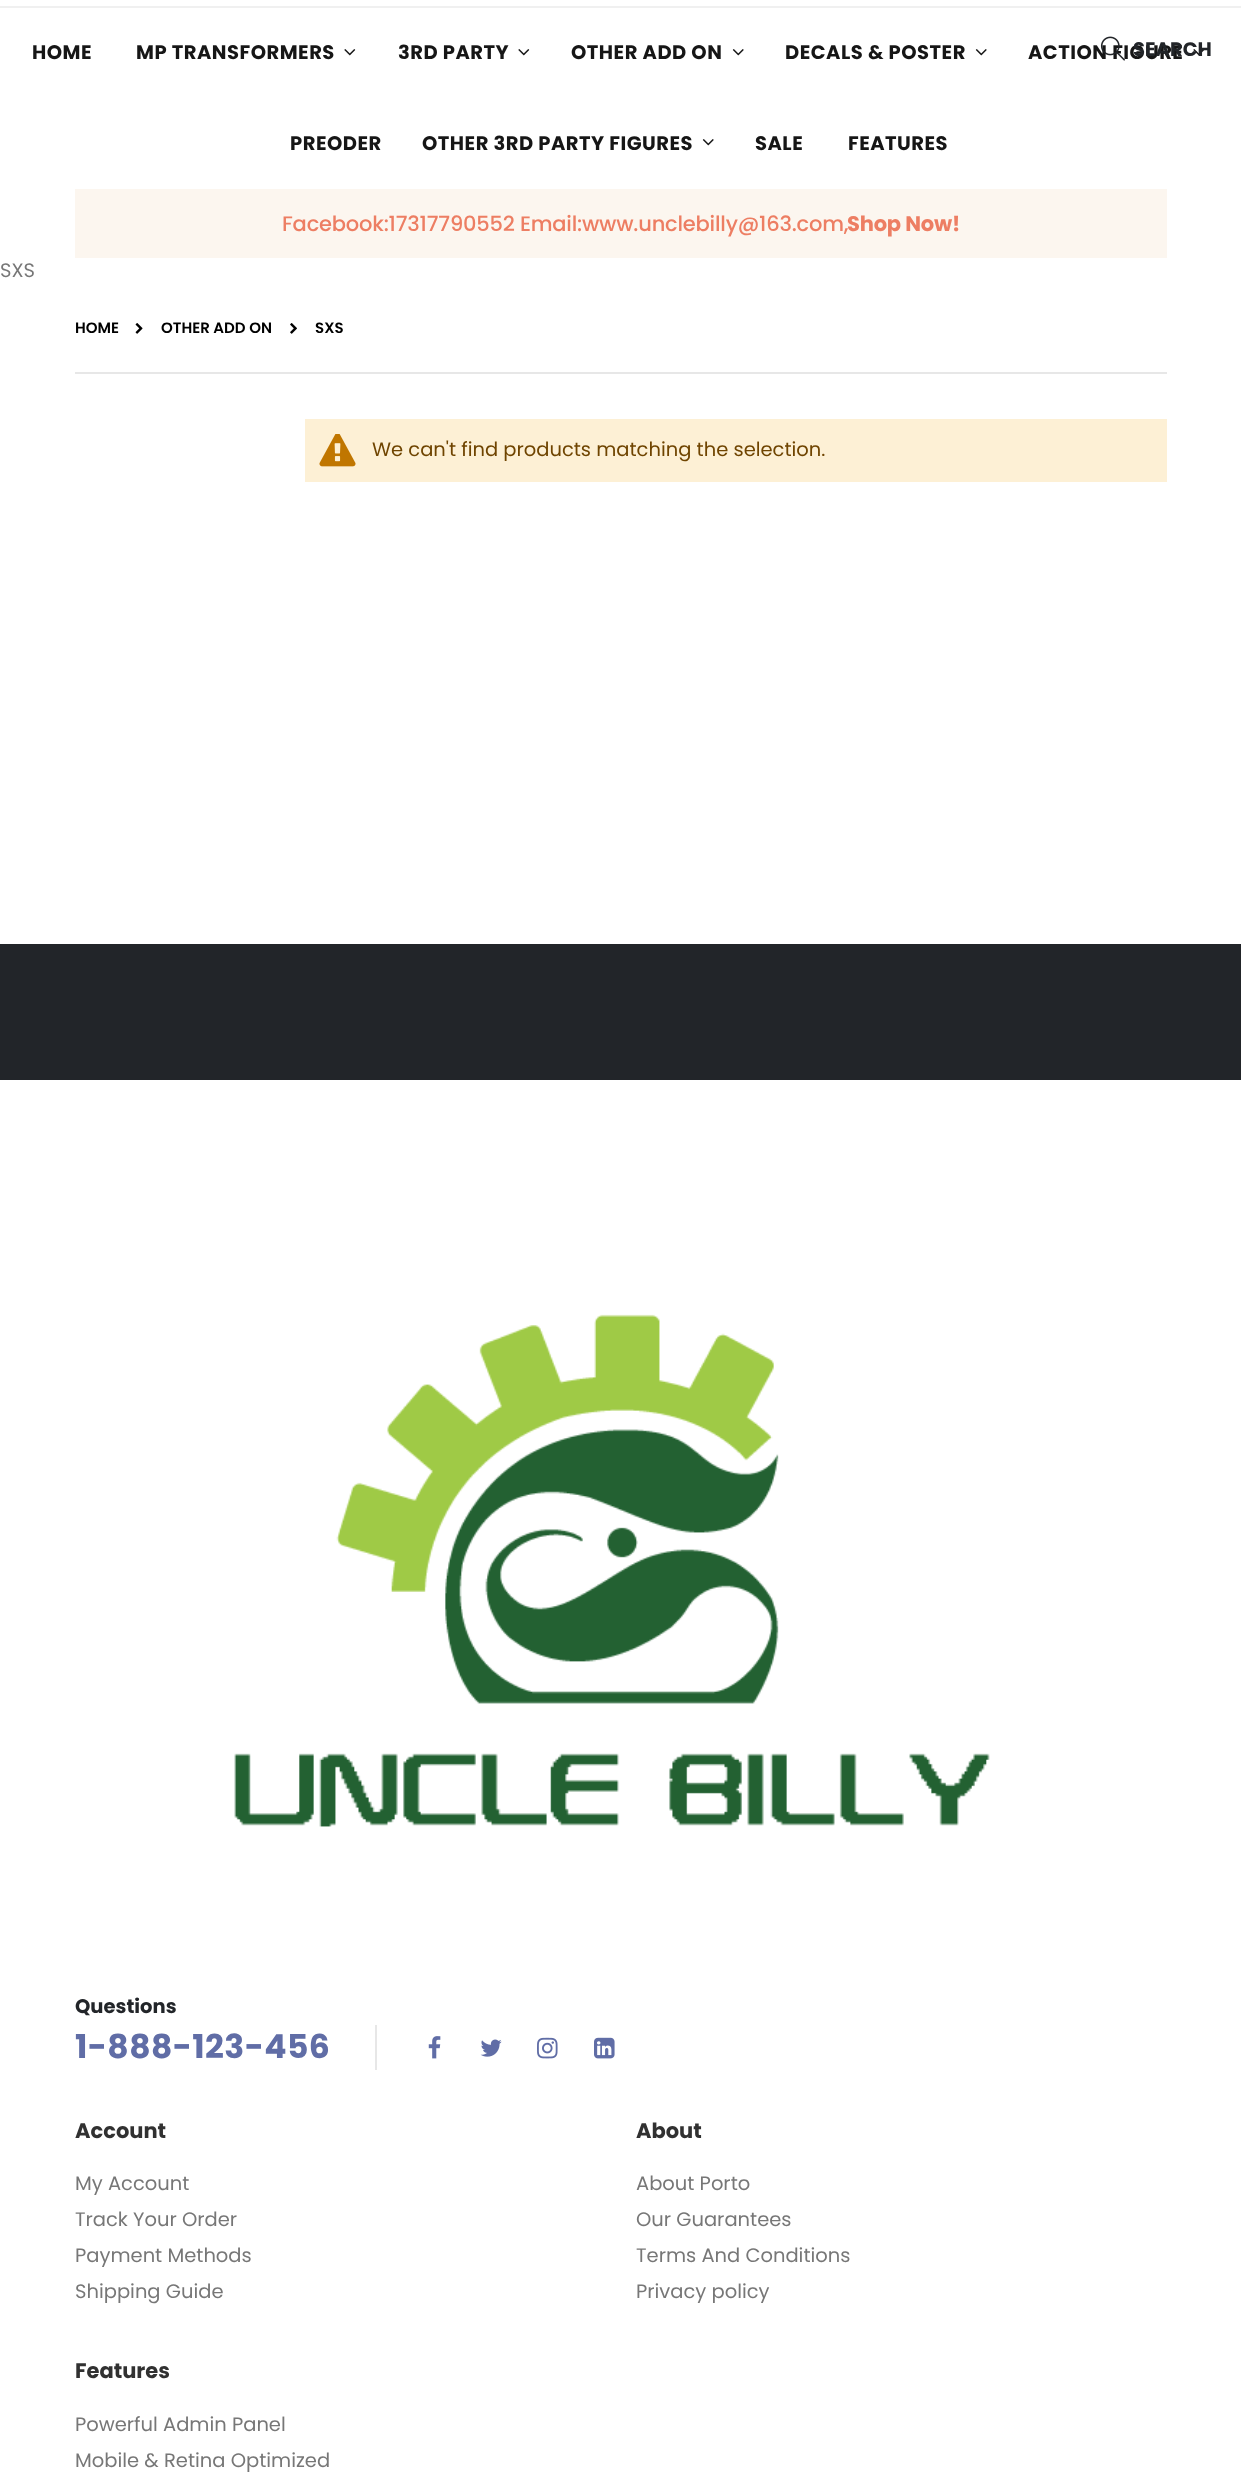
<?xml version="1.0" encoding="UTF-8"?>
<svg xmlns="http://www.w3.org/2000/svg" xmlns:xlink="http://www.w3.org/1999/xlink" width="1241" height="2479">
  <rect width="100%" height="100%" fill="#ffffff" />
  <rect y="6" width="1241" height="2" fill="#f0f0f0" />
  <image x="344" y="49" width="12" height="7" xlink:href="image2.png" />
  <image x="518" y="49" width="12" height="7" xlink:href="image2.png" />
  <image x="732" y="49" width="12" height="7" xlink:href="image3.png" />
  <image x="975" y="49" width="12" height="7" xlink:href="image3.png" />
  <image x="1193" y="49" width="12" height="7" xlink:href="image2.png" />
  <image x="702" y="139" width="12" height="7" xlink:href="image3.png" />
  <rect x="75" y="189" width="1092" height="69" fill="#fcf6ef" />
  <rect x="75" y="372" width="1092" height="2" fill="#e7e7e7" />
  <image x="135" y="323" width="8" height="11" xlink:href="image4.png" />
  <image x="290" y="323" width="7" height="11" xlink:href="image5.png" />
  <rect x="305" y="419" width="862" height="63" fill="#fdf0d5" />
  <image x="319" y="434" width="37" height="33" xlink:href="image6.png" />
  <rect y="944" width="1241" height="136" fill="#222529" />
  <image x="234" y="1314" width="756" height="513" xlink:href="image7.png" />
  <rect x="375" y="2025" width="2" height="45" fill="#e7e7e7" />
  <image x="428" y="2036" width="13" height="23" xlink:href="image8.png" />
  <image x="480" y="2039" width="22" height="18" xlink:href="image9.png" />
  <image x="537" y="2037" width="21" height="22" xlink:href="image10.png" />
  <image x="594" y="2037" width="21" height="22" xlink:href="image11.png" />
  <text x="32" y="59" style="font-family: Poppins; font-size: 19.5px; font-weight: bold; letter-spacing: 0.5px; fill: #161616">HOME</text>
  <text x="136" y="59" style="font-family: Poppins; font-size: 19.5px; font-weight: bold; letter-spacing: 0.5px; fill: #161616">MP TRANSFORMERS</text>
  <text x="398" y="59" style="font-family: Poppins; font-size: 19.5px; font-weight: bold; letter-spacing: 0.5px; fill: #161616">3RD PARTY</text>
  <text x="571" y="59" style="font-family: Poppins; font-size: 19.5px; font-weight: bold; letter-spacing: 0.5px; fill: #161616">OTHER ADD ON</text>
  <text x="785" y="59" style="font-family: Poppins; font-size: 19.5px; font-weight: bold; letter-spacing: 0.5px; fill: #161616">DECALS &amp; POSTER</text>
  <text x="1028" y="59" style="font-family: Poppins; font-size: 19.5px; font-weight: bold; letter-spacing: 0.5px; fill: #161616">ACTION FIGURE</text>
  <text x="1133" y="56" style="font-family: Poppins; font-size: 19.5px; font-weight: bold; fill: #222529">SEARCH</text>
  <image x="1100" y="36" width="25" height="25" xlink:href="image1.png" />
  <text x="290" y="150" style="font-family: Poppins; font-size: 19.5px; font-weight: bold; letter-spacing: 0.5px; fill: #161616">PREODER</text>
  <text x="422" y="150" style="font-family: Poppins; font-size: 19.5px; font-weight: bold; letter-spacing: 0.5px; fill: #161616">OTHER 3RD PARTY FIGURES</text>
  <text x="755" y="150" style="font-family: Poppins; font-size: 19.5px; font-weight: bold; letter-spacing: 0.5px; fill: #161616">SALE</text>
  <text x="848" y="150" style="font-family: Poppins; font-size: 19.5px; font-weight: bold; letter-spacing: 0.5px; fill: #161616">FEATURES</text>
  <text x="282" y="231" style="font-family: Poppins; font-size: 21px; font-weight: 500; letter-spacing: -0.2px; fill: #ed7e63">Facebook:17317790552 Email:www.unclebilly@163.com,</text>
  <text x="847" y="231" style="font-family: Poppins; font-size: 21px; font-weight: bold; letter-spacing: -0.2px; fill: #ed7e63">Shop Now!</text>
  <text x="0" y="277" style="font-family: Poppins; font-size: 19.5px; fill: #777777">SXS</text>
  <text x="75" y="333" style="font-family: Poppins; font-size: 15px; font-weight: 600; fill: #000000">HOME</text>
  <text x="161" y="333" style="font-family: Poppins; font-size: 15px; font-weight: 600; fill: #000000">OTHER ADD ON</text>
  <text x="315" y="333" style="font-family: Poppins; font-size: 15px; font-weight: 600; fill: #000000">SXS</text>
  <text x="372" y="456" style="font-family: Poppins; font-size: 19.5px; fill: #6f4400">We can't find products matching the selection.</text>
  <text x="75" y="2013" style="font-family: Poppins; font-size: 19.5px; font-weight: bold; fill: #222529">Questions</text>
  <text x="75" y="2058" style="font-family: Poppins; font-size: 33px; font-weight: bold; letter-spacing: 0.4px; fill: #606da6">1-888-123-456</text>
  <text x="75" y="2138" style="font-family: Poppins; font-size: 21px; font-weight: bold; fill: #313131">Account</text>
  <text x="75" y="2190" style="font-family: Poppins; font-size: 19.5px; fill: #777777">My Account</text>
  <text x="75" y="2226" style="font-family: Poppins; font-size: 19.5px; fill: #777777">Track Your Order</text>
  <text x="75" y="2262" style="font-family: Poppins; font-size: 19.5px; fill: #777777">Payment Methods</text>
  <text x="75" y="2298" style="font-family: Poppins; font-size: 19.5px; fill: #777777">Shipping Guide</text>
  <text x="636" y="2138" style="font-family: Poppins; font-size: 21px; font-weight: bold; fill: #313131">About</text>
  <text x="636" y="2190" style="font-family: Poppins; font-size: 19.5px; fill: #777777">About Porto</text>
  <text x="636" y="2226" style="font-family: Poppins; font-size: 19.5px; fill: #777777">Our Guarantees</text>
  <text x="636" y="2262" style="font-family: Poppins; font-size: 19.5px; fill: #777777">Terms And Conditions</text>
  <text x="636" y="2298" style="font-family: Poppins; font-size: 19.5px; fill: #777777">Privacy policy</text>
  <text x="75" y="2378" style="font-family: Poppins; font-size: 21px; font-weight: bold; fill: #313131">Features</text>
  <text x="75" y="2431" style="font-family: Poppins; font-size: 19.5px; fill: #777777">Powerful Admin Panel</text>
  <text x="75" y="2467" style="font-family: Poppins; font-size: 19.5px; fill: #777777">Mobile &amp; Retina Optimized</text>
</svg>
